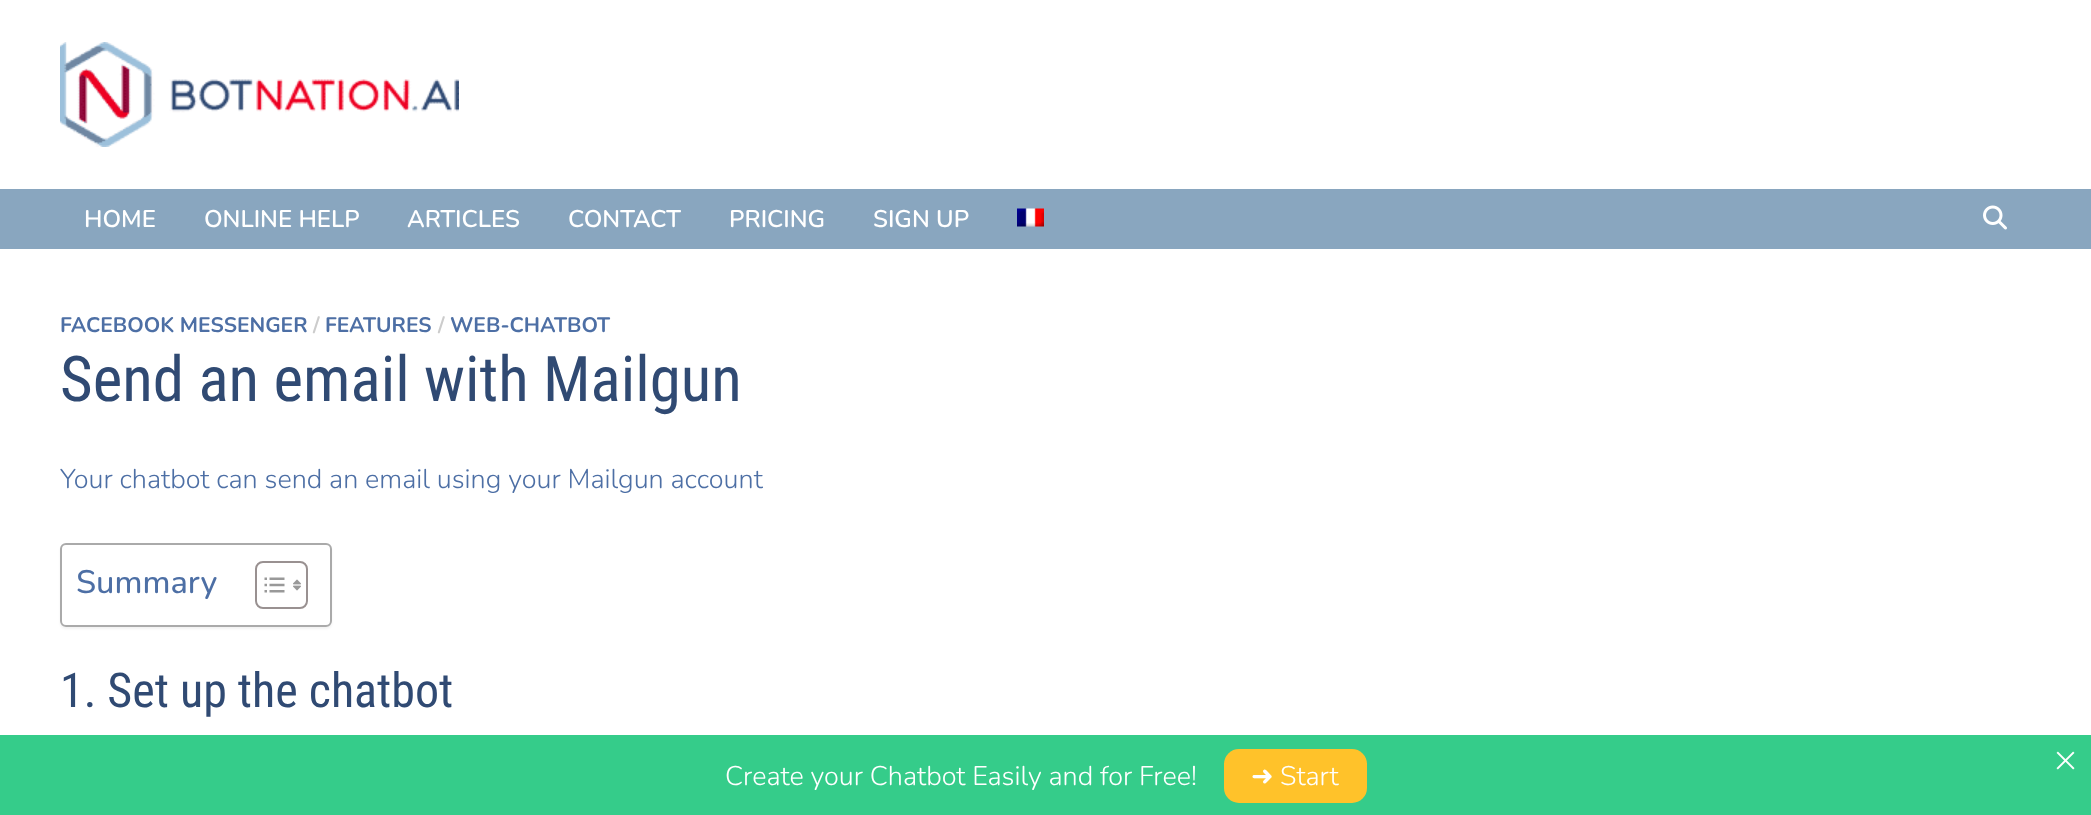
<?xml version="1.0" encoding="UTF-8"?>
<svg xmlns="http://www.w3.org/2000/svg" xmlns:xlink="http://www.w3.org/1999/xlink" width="2091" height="815">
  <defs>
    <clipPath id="clip1"><path d="M 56 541 h 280 v 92 h -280 z m 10 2 h 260 c 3.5 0 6 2.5 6 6 v 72 c 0 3.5 -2.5 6 -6 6 h -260 c -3.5 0 -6 -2.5 -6 -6 v -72 c 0 -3.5 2.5 -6 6 -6 z" clip-rule="evenodd" /></clipPath>
  </defs>
  <rect width="100%" height="100%" fill="#ffffff" />
  <image x="60" y="42" width="399" height="105" xlink:href="image1.png" />
  <rect y="189" width="2091" height="60" fill="#89a6bf" />
  <image x="1017" y="208" width="27" height="19" xlink:href="image2.png" />
  <image x="1983" y="205" width="24" height="25" xlink:href="image3.png" />
  <g clip-path="url(#clip1)">
    <rect x="60" y="545" width="272" height="84" rx="6" fill="#000000" fill-opacity="0.05" filter="blur(1px)" />
  </g>
  <rect x="61" y="544" width="270" height="82" rx="5" fill="none" stroke="#aaaaaa" stroke-width="2" />
  <rect x="256" y="562" width="51" height="46" rx="7" fill="none" stroke="#999191" stroke-width="2" />
  <image x="264" y="577" width="21" height="16" xlink:href="image4.png" />
  <image x="293" y="579" width="8" height="12" xlink:href="image5.png" />
  <rect y="735" width="2091" height="80" fill="#35cc8a" />
  <image x="2056" y="751" width="19" height="19" xlink:href="image6.png" />
  <rect x="1224" y="749" width="143" height="54" rx="15" fill="#ffc22a" />
  <text x="84" y="227" style="font-family: Nunito; font-size: 24px; font-weight: 600; fill: #ffffff">HOME</text>
  <text x="204" y="227" style="font-family: Nunito; font-size: 24px; font-weight: 600; fill: #ffffff">ONLINE HELP</text>
  <text x="407" y="227" style="font-family: Nunito; font-size: 24px; font-weight: 600; fill: #ffffff">ARTICLES</text>
  <text x="568" y="227" style="font-family: Nunito; font-size: 24px; font-weight: 600; fill: #ffffff">CONTACT</text>
  <text x="729" y="227" style="font-family: Nunito; font-size: 24px; font-weight: 600; fill: #ffffff">PRICING</text>
  <text x="873" y="227" style="font-family: Nunito; font-size: 24px; font-weight: 600; fill: #ffffff">SIGN UP</text>
  <text x="60" y="332" style="font-family: Nunito; font-size: 21px; font-weight: bold; fill: #4d6fa5">FACEBOOK MESSENGER</text>
  <text x="313" y="332" style="font-family: Nunito; font-size: 21px; font-weight: bold; fill: #cccccc">/</text>
  <text x="325" y="332" style="font-family: Nunito; font-size: 21px; font-weight: bold; fill: #4d6fa5">FEATURES</text>
  <text x="438" y="332" style="font-family: Nunito; font-size: 21px; font-weight: bold; fill: #cccccc">/</text>
  <text x="450" y="332" style="font-family: Nunito; font-size: 21px; font-weight: bold; fill: #4d6fa5">WEB-CHATBOT</text>
  <text x="60" y="401" style="font-family: Roboto Condensed; font-size: 63px; fill: #304a73">Send an email with Mailgun</text>
  <text x="60" y="488" style="font-family: Nunito; font-size: 27px; font-weight: 300; fill: #4d6fa5">Your chatbot can send an email using your Mailgun account</text>
  <text x="76" y="593" style="font-family: Nunito; font-size: 32.5px; font-weight: 500; fill: #4d6fa5">Summary</text>
  <text x="60" y="707" style="font-family: Roboto Condensed; font-size: 48px; fill: #304a73">1. Set up the chatbot</text>
  <text x="725" y="785" style="font-family: Nunito; font-size: 27px; font-weight: 300; fill: #ffffff">Create your Chatbot Easily and for Free!</text>
  <text x="1251" y="785" style="font-family: DejaVu Sans; font-size: 27px; fill: #ffffff">➜</text>
  <text x="1280" y="785" style="font-family: Nunito; font-size: 27px; font-weight: 300; fill: #ffffff">Start</text>
</svg>
